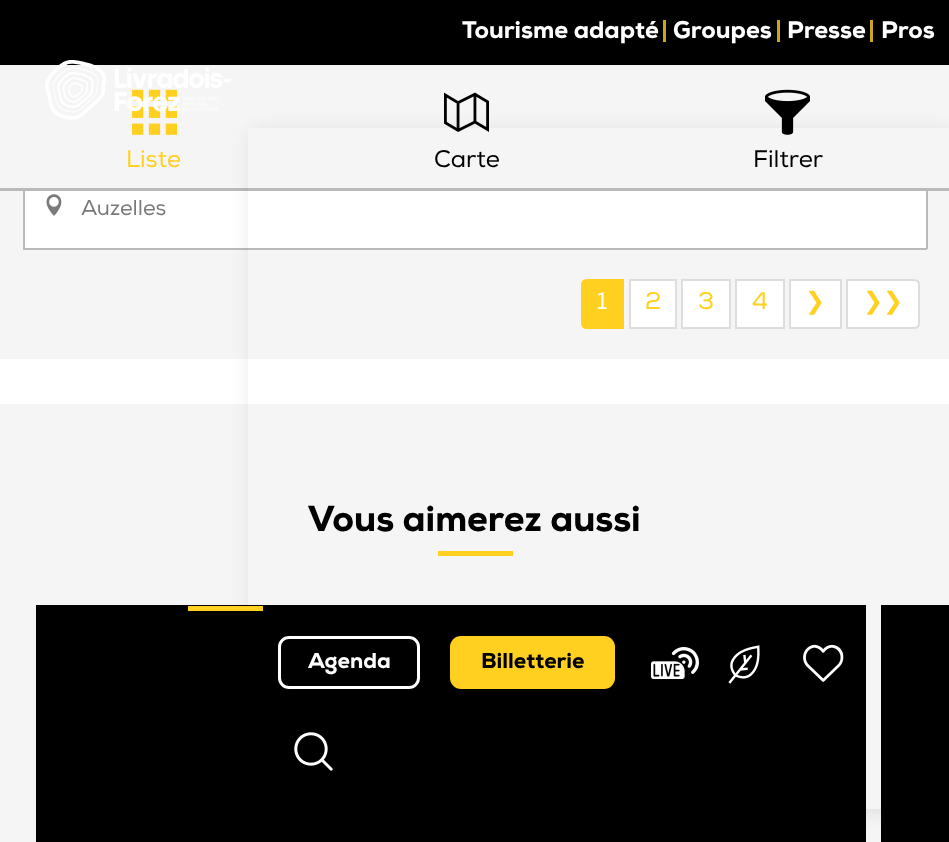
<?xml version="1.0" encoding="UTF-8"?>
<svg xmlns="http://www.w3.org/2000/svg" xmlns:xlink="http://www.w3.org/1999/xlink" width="949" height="842">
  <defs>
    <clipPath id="clip1"><path d="M 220 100 h 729 v 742 h -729 z m 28 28 h 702 v 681 h -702 z" clip-rule="evenodd" /></clipPath>
  </defs>
  <rect width="100%" height="100%" fill="#ffffff" />
  <rect width="949" height="65" fill="#000000" />
  <rect x="663" y="20" width="3" height="22" fill="#cca61a" />
  <rect x="777" y="20" width="3" height="22" fill="#cca61a" />
  <rect x="870" y="20" width="3" height="22" fill="#cca61a" />
  <rect y="65" width="949" height="123" fill="#f5f5f5" />
  <rect y="188" width="949" height="3" fill="#bababa" />
  <image x="444" y="92" width="45" height="40" xlink:href="image7.png" />
  <image x="765" y="89" width="45" height="46" xlink:href="image8.png" />
  <rect y="191" width="949" height="168" fill="#f5f5f5" />
  <rect x="25" y="191" width="901" height="57" fill="#ffffff" />
  <rect x="926" y="191" width="2" height="58" fill="#bababa" />
  <rect x="23" y="248" width="904" height="2" fill="#bababa" />
  <path d="M 587 280 h 36 v 48 h -36 c -3 0 -5 -2 -5 -5 v -38 c 0 -3 2 -5 5 -5 z" fill="#ffd020" stroke="#ffd020" stroke-width="2" />
  <rect x="630" y="280" width="46" height="48" fill="#ffffff" stroke="#dddddd" stroke-width="2" />
  <rect x="682" y="280" width="48" height="48" fill="#ffffff" stroke="#dddddd" stroke-width="2" />
  <rect x="736" y="280" width="48" height="48" fill="#ffffff" stroke="#dddddd" stroke-width="2" />
  <rect x="790" y="280" width="51" height="48" fill="#ffffff" stroke="#dddddd" stroke-width="2" />
  <path d="M 847 280 h 67 c 3 0 5 2 5 5 v 38 c 0 3 -2 5 -5 5 h -67 z" fill="#ffffff" stroke="#dddddd" stroke-width="2" />
  <rect y="404" width="949" height="438" fill="#f5f5f5" />
  <rect x="438" y="551" width="75" height="5" fill="#ffd020" />
  <rect x="36" y="605" width="830" height="237" fill="#000000" />
  <rect x="881" y="605" width="68" height="237" fill="#000000" />
  <g clip-path="url(#clip1)">
    <rect x="251" y="131" width="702" height="681" fill="#000000" fill-opacity="0.09" filter="blur(10px)" />
  </g>
  <image x="132" y="89" width="45" height="46" xlink:href="image6.png" />
  <image x="45" y="60" width="186" height="60" xlink:href="image1.png" />
  <rect x="188" y="606" width="75" height="5" fill="#ffd020" />
  <rect x="279.5" y="637.5" width="139" height="50" rx="9.5" fill="none" stroke="#ffffff" stroke-width="3" />
  <rect x="450" y="636" width="165" height="53" rx="11" fill="#ffd020" />
  <image x="651" y="647" width="48" height="32" xlink:href="image2.png" />
  <image x="728" y="645" width="32" height="39" xlink:href="image3.png" />
  <image x="803" y="644" width="41" height="38" xlink:href="image4.png" />
  <image x="294" y="732" width="39" height="39" xlink:href="image5.png" />
  <rect x="23" y="191" width="2" height="58" fill="#bababa" />
  <image x="46" y="194" width="16" height="22" xlink:href="image9.png" />
  <text x="462" y="38" style="font-family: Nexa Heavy; font-size: 24px; font-weight: 900; fill: #ffffff">Tourisme adapté</text>
  <text x="673" y="38" style="font-family: Nexa Heavy; font-size: 24px; font-weight: 900; fill: #ffffff">Groupes</text>
  <text x="787" y="38" style="font-family: Nexa Heavy; font-size: 24px; font-weight: 900; fill: #ffffff">Presse</text>
  <text x="881" y="38" style="font-family: Nexa Heavy; font-size: 24px; font-weight: 900; fill: #ffffff">Pros</text>
  <text x="308" y="668" style="font-family: Nexa Heavy; font-size: 21.5px; font-weight: 900; fill: #ffffff">Agenda</text>
  <text x="481" y="668" style="font-family: Nexa Heavy; font-size: 21.5px; font-weight: 900; fill: #000000">Billetterie</text>
  <text x="126" y="167" style="font-family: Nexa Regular; font-size: 24px; fill: #ffd020">Liste</text>
  <text x="434" y="167" style="font-family: Nexa Regular; font-size: 24px; fill: #000000">Carte</text>
  <text x="753" y="167" style="font-family: Nexa Regular; font-size: 24px; fill: #000000">Filtrer</text>
  <text x="81" y="215" style="font-family: Nexa Regular; font-size: 21.5px; fill: #7a7a7a">Auzelles</text>
  <text x="597" y="309" style="font-family: Nexa Regular; font-size: 24px; fill: #ffffff">1</text>
  <text x="645" y="309" style="font-family: Nexa Regular; font-size: 24px; fill: #ffd020">2</text>
  <text x="698" y="309" style="font-family: Nexa Regular; font-size: 24px; fill: #ffd020">3</text>
  <text x="752" y="309" style="font-family: Nexa Regular; font-size: 24px; fill: #ffd020">4</text>
  <text x="805" y="309" style="font-family: DejaVu Sans; font-size: 24px; fill: #ffd020">❯</text>
  <text x="863" y="309" style="font-family: DejaVu Sans; font-size: 24px; fill: #ffd020">❯❯</text>
  <text x="308" y="531" style="font-family: Nexa Heavy; font-size: 36px; font-weight: 900; fill: #000000">Vous aimerez aussi</text>
</svg>
